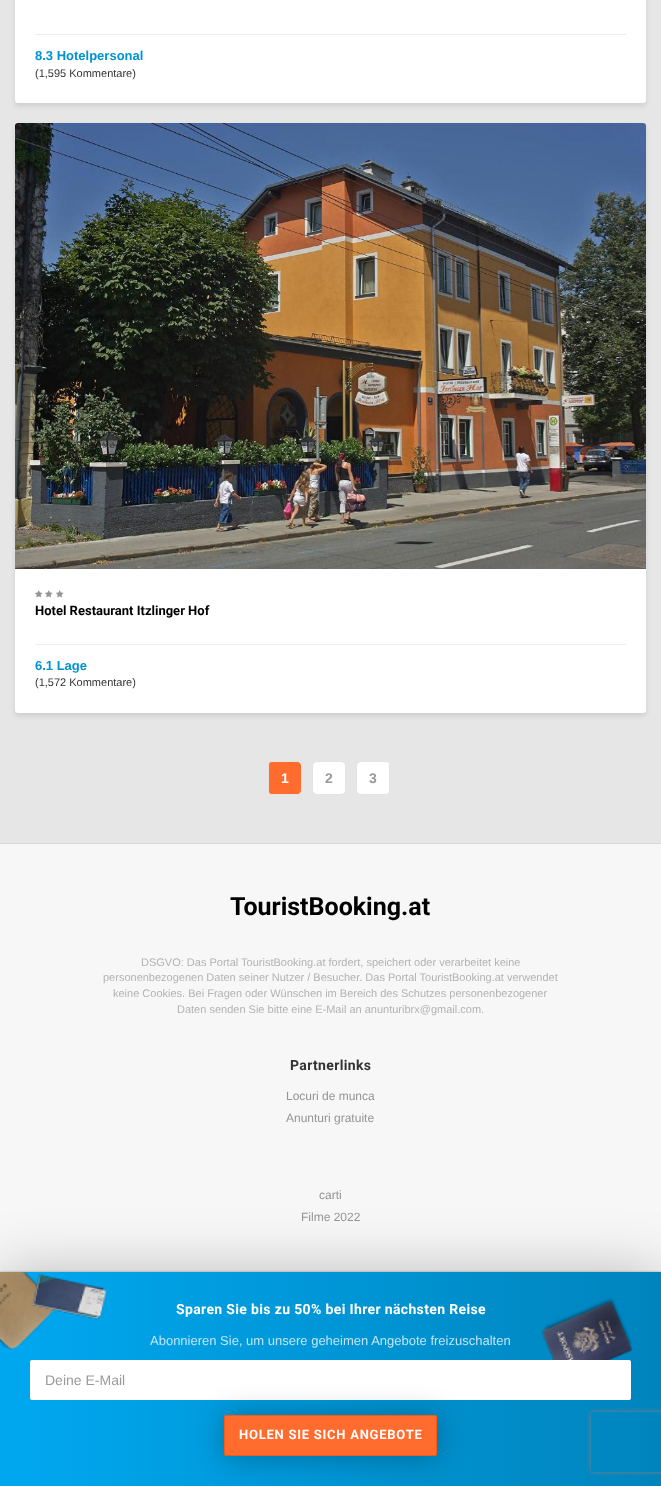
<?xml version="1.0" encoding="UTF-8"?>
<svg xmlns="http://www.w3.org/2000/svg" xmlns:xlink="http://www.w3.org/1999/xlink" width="661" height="1486">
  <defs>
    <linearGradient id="g1" gradientUnits="userSpaceOnUse" x1="0" y1="1379" x2="661" y2="1379"><stop offset="0" stop-color="#00a8f0" /><stop offset="1" stop-color="#0084bd" /></linearGradient>
    <clipPath id="clip1"><path d="M 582 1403 h 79 v 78 h -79 z m 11 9 h 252 c 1 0 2 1 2 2 v 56 c 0 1 -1 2 -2 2 h -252 c -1 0 -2 -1 -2 -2 v -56 c 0 -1 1 -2 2 -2 z" clip-rule="evenodd" /></clipPath>
  </defs>
  <rect width="100%" height="100%" fill="#e6e6e6" />
  <rect x="15" y="-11" width="631" height="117" rx="3" fill="#000000" fill-opacity="0.1" filter="blur(2.5px)" />
  <rect x="15" y="-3" width="631" height="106" rx="3" fill="#ffffff" />
  <rect x="35" y="34" width="591" height="1" fill="#ededed" />
  <rect x="15" y="126" width="631" height="590" rx="3" fill="#000000" fill-opacity="0.1" filter="blur(2.5px)" />
  <rect x="15" y="123" width="631" height="590" rx="3" fill="#ffffff" />
  <image x="15" y="123" width="631" height="446" xlink:href="image1.png" />
  <image x="35" y="590" width="8" height="8" xlink:href="image2.png" />
  <image x="45" y="590" width="8" height="8" xlink:href="image2.png" />
  <image x="56" y="590" width="8" height="8" xlink:href="image2.png" />
  <rect x="35" y="644" width="591" height="1" fill="#ededed" />
  <path d="M 272 761.5 h 25 c 2.5 0 4.5 2 4.5 4.5 v 24 c 0 2.5 -2 4.5 -4.5 4.5 h -25 c -2 0 -3.5 -1.5 -3.5 -3.5 v -26 c 0 -2 1.5 -3.5 3.5 -3.5 z" fill="#ff6c2d" stroke="#e2e3e3" />
  <rect x="312.5" y="761.5" width="33" height="33" rx="4.5" fill="#ffffff" stroke="#e2e3e3" />
  <path d="M 361 761.5 h 25 c 2 0 3.5 1.5 3.5 3.5 v 26 c 0 2 -1.5 3.5 -3.5 3.5 h -25 c -2.5 0 -4.5 -2 -4.5 -4.5 v -24 c 0 -2.5 2 -4.5 4.5 -4.5 z" fill="#ffffff" stroke="#e2e3e3" />
  <rect y="844" width="661" height="428" fill="#f7f7f7" />
  <rect y="843" width="661" height="1" fill="#d9d9d9" />
  <rect y="1272" width="661" height="214" fill="#000000" fill-opacity="0.3" filter="blur(1px)" />
  <rect y="1273" width="661" height="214" fill="#000000" fill-opacity="0.25" filter="blur(30px)" />
  <rect y="1272" width="661" height="214" fill="url(#g1)" />
  <image x="0" y="1272" width="633" height="88" xlink:href="image3.png" />
  <rect x="30" y="1360" width="601" height="40" rx="2" fill="#ffffff" />
  <rect x="224" y="1416" width="213" height="41" rx="2" fill="#000000" fill-opacity="0.28" filter="blur(15px)" />
  <rect x="224.5" y="1415.5" width="212" height="40" rx="1.5" fill="#ff6c2d" stroke="#ff570f" />
  <g clip-path="url(#clip1)">
    <rect x="591" y="1412" width="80" height="60" rx="2" fill="#808080" filter="blur(2.5px)" />
  </g>
  <text x="35" y="60" style="font-family: Liberation Sans; font-size: 13px; font-weight: bold; fill: #0093d2">8.3 Hotelpersonal</text>
  <text x="35" y="77" style="font-family: Liberation Sans; font-size: 11px; fill: #333333">(1,595 Kommentare)</text>
  <text x="35" y="615" style="font-family: Roboto; font-size: 13px; font-weight: bold; fill: #000000">Hotel Restaurant Itzlinger Hof</text>
  <text x="35" y="670" style="font-family: Liberation Sans; font-size: 13px; font-weight: bold; fill: #0093d2">6.1 Lage</text>
  <text x="35" y="686" style="font-family: Liberation Sans; font-size: 11px; fill: #333333">(1,572 Kommentare)</text>
  <text x="281" y="783" style="font-family: Liberation Sans; font-size: 14px; font-weight: bold; fill: #ffffff">1</text>
  <text x="325" y="783" style="font-family: Liberation Sans; font-size: 14px; font-weight: bold; fill: #9a9a9a">2</text>
  <text x="369" y="783" style="font-family: Liberation Sans; font-size: 14px; font-weight: bold; fill: #9a9a9a">3</text>
  <text x="230" y="915" style="font-family: Roboto; font-size: 25px; font-weight: bold; fill: #000000">TouristBooking.at</text>
  <text x="141" y="966" style="font-family: Liberation Sans; font-size: 11px; fill: #b3b3b3">DSGVO: Das Portal TouristBooking.at fordert, speichert oder verarbeitet keine</text>
  <text x="103" y="981" style="font-family: Liberation Sans; font-size: 11px; fill: #b3b3b3">personenbezogenen Daten seiner Nutzer / Besucher. Das Portal TouristBooking.at verwendet</text>
  <text x="113" y="997" style="font-family: Liberation Sans; font-size: 11px; fill: #b3b3b3">keine Cookies. Bei Fragen oder Wünschen im Bereich des Schutzes personenbezogener</text>
  <text x="177" y="1013" style="font-family: Liberation Sans; font-size: 11px; fill: #b3b3b3">Daten senden Sie bitte eine E-Mail an anunturibrx@gmail.com.</text>
  <text x="290" y="1070" style="font-family: Roboto; font-size: 14px; font-weight: bold; letter-spacing: 0.35px; fill: #333333">Partnerlinks</text>
  <text x="286" y="1100" style="font-family: Liberation Sans; font-size: 12px; fill: #949494">Locuri de munca</text>
  <text x="286" y="1122" style="font-family: Liberation Sans; font-size: 12px; fill: #949494">Anunturi gratuite</text>
  <text x="319" y="1199" style="font-family: Liberation Sans; font-size: 12px; fill: #949494">carti</text>
  <text x="301" y="1221" style="font-family: Liberation Sans; font-size: 12px; fill: #949494">Filme 2022</text>
  <text x="176" y="1314" style="font-family: Roboto; font-size: 14px; font-weight: bold; letter-spacing: 0.35px; fill: #ffffff">Sparen Sie bis zu 50% bei Ihrer nächsten Reise</text>
  <text x="150" y="1345" style="font-family: Liberation Sans; font-size: 13px; fill: #bfe5f5">Abonnieren Sie, um unsere geheimen Angebote freizuschalten</text>
  <text x="45" y="1385" style="font-family: Liberation Sans; font-size: 14px; fill: #9a9a9a">Deine E-Mail</text>
  <text x="239" y="1439" style="font-family: Roboto; font-size: 13px; font-weight: bold; letter-spacing: 0.75px; fill: #ffffff">HOLEN SIE SICH ANGEBOTE</text>
</svg>
